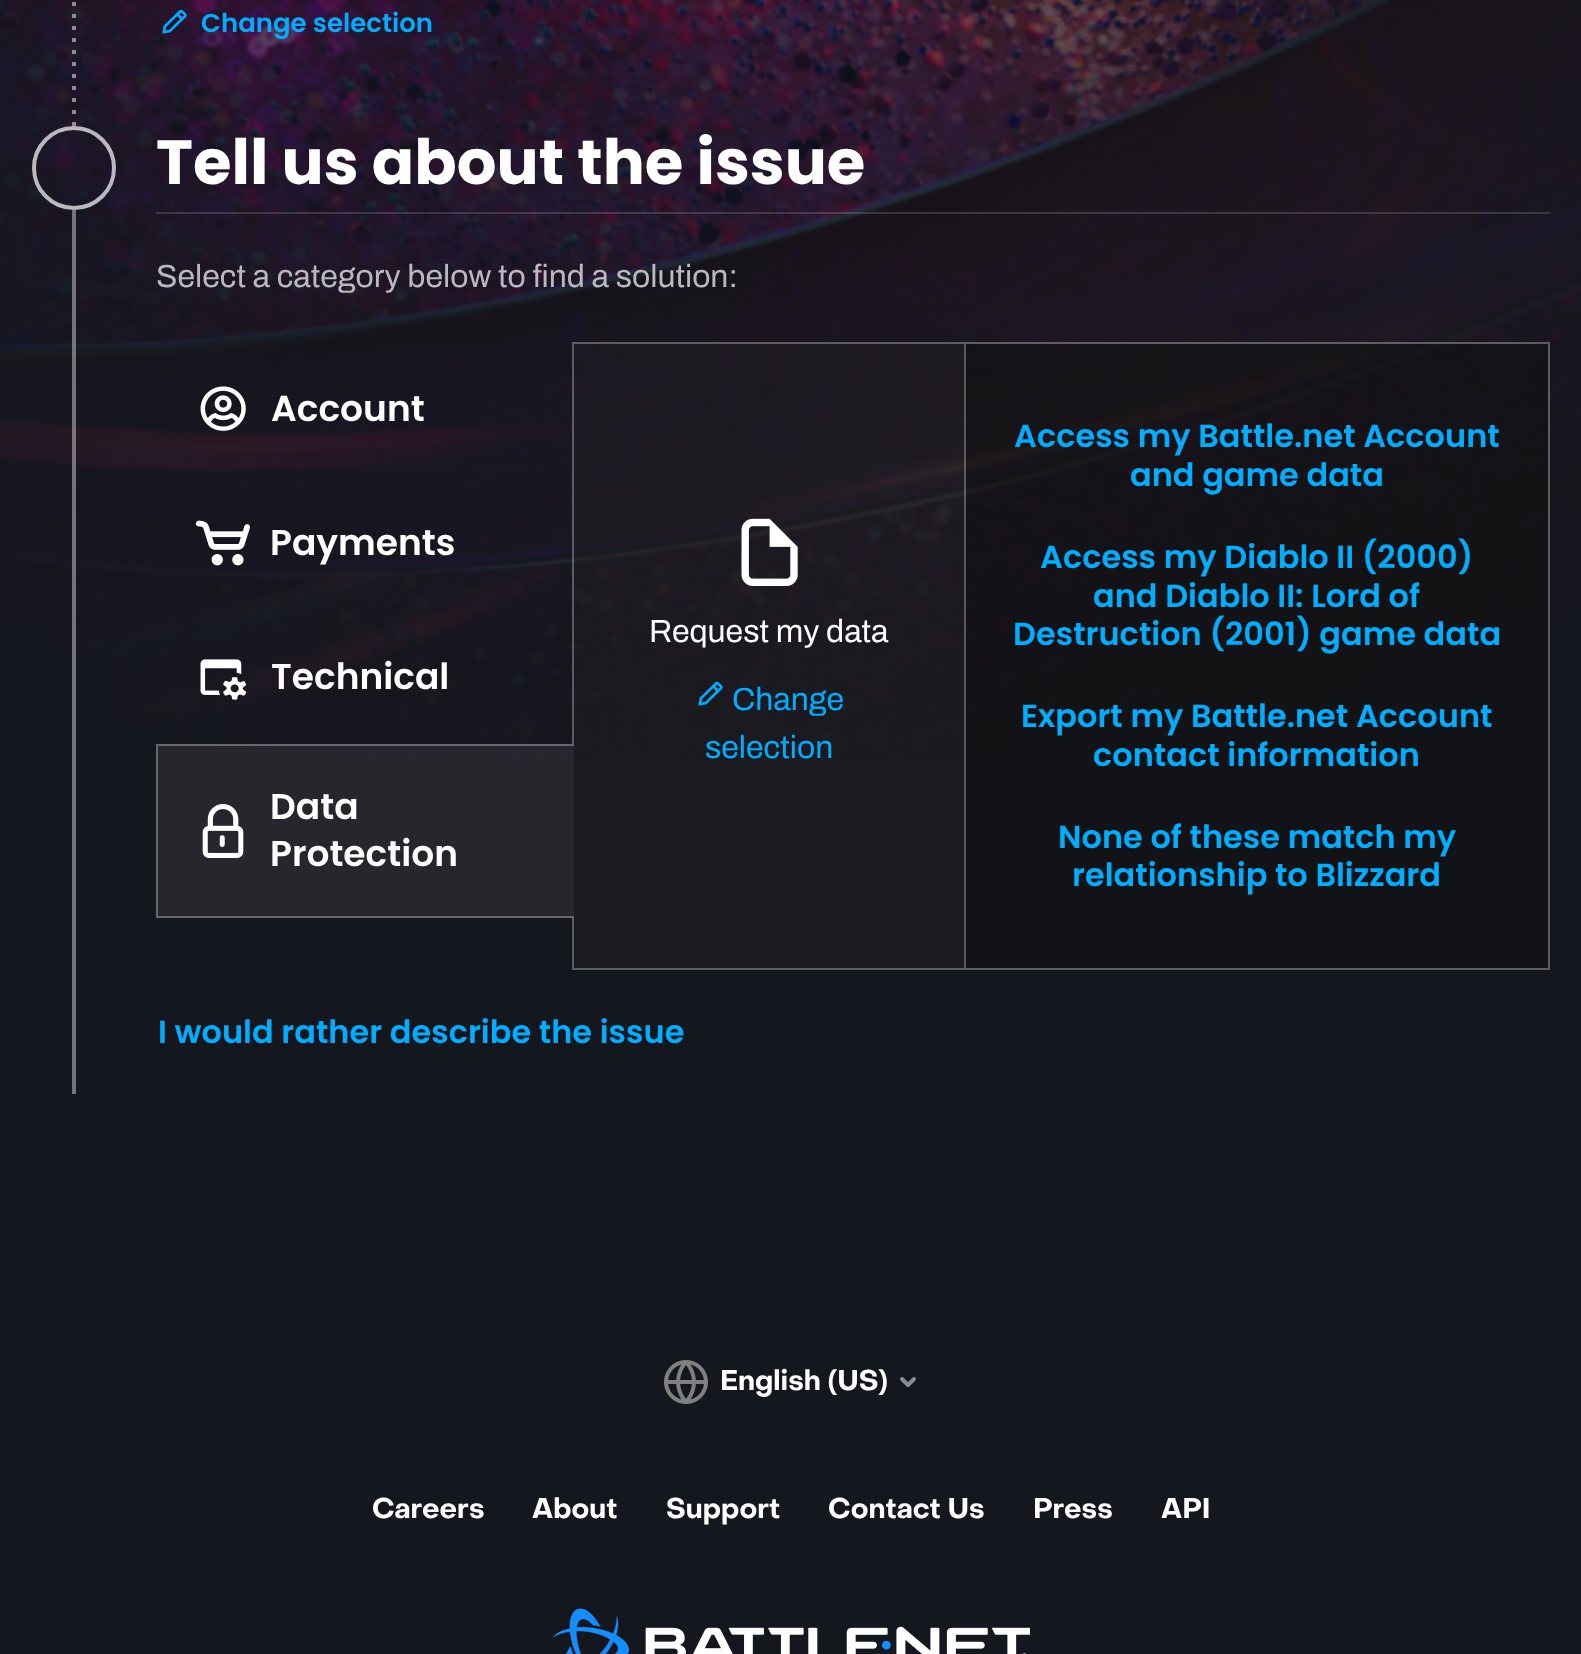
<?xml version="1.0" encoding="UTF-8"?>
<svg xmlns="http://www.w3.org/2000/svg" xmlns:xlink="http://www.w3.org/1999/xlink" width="1581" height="1654">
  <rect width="100%" height="100%" fill="#15171e" />
  <image x="0" y="0" width="1581" height="761" xlink:href="image1.png" />
  <rect x="72" y="2" width="4" height="4" fill="#ffffff" fill-opacity="0.5" />
  <rect x="72" y="14" width="4" height="4" fill="#ffffff" fill-opacity="0.5" />
  <rect x="72" y="26" width="4" height="4" fill="#ffffff" fill-opacity="0.5" />
  <rect x="72" y="38" width="4" height="4" fill="#ffffff" fill-opacity="0.5" />
  <rect x="72" y="50" width="4" height="4" fill="#ffffff" fill-opacity="0.5" />
  <rect x="72" y="62" width="4" height="4" fill="#ffffff" fill-opacity="0.5" />
  <rect x="72" y="74" width="4" height="4" fill="#ffffff" fill-opacity="0.5" />
  <rect x="72" y="86" width="4" height="4" fill="#ffffff" fill-opacity="0.5" />
  <rect x="72" y="98" width="4" height="4" fill="#ffffff" fill-opacity="0.5" />
  <rect x="72" y="110" width="4" height="4" fill="#ffffff" fill-opacity="0.5" />
  <rect x="72" y="122" width="4" height="4" fill="#ffffff" fill-opacity="0.5" />
  <image x="162" y="9" width="25" height="25" xlink:href="image2.png" />
  <circle cx="74" cy="168" r="40" fill="none" stroke="#ffffff" stroke-opacity="0.7" stroke-width="4" />
  <rect x="72" y="210" width="4" height="884" fill="#ffffff" fill-opacity="0.4" />
  <rect x="156" y="212" width="1394" height="2" fill="#ffffff" fill-opacity="0.15" />
  <rect x="572" y="342" width="2" height="402" fill="#ffffff" fill-opacity="0.3" />
  <rect x="156" y="744" width="418" height="174" fill="#ffffff" fill-opacity="0.07" />
  <path d="M 156 744 h 418 v 2 h -416 z" fill="#ffffff" fill-opacity="0.3" />
  <path d="M 574 918 h -418 l 2 -2 h 416 z" fill="#67686d" />
  <path d="M 156 918 v -174 l 2 2 v 170 z" fill="#ffffff" fill-opacity="0.3" />
  <rect x="572" y="918" width="2" height="52" fill="#5b5d62" />
  <image x="200" y="386" width="46" height="45" xlink:href="image3.png" />
  <image x="195" y="520" width="55" height="46" xlink:href="image4.png" />
  <image x="200" y="659" width="47" height="41" xlink:href="image5.png" />
  <image x="202" y="804" width="42" height="54" xlink:href="image6.png" />
  <path d="M 574 342 h 976 l -2 2 h -974 z" fill="#ffffff" fill-opacity="0.3" />
  <path d="M 1550 342 v 628 l -2 -2 v -624 z" fill="#ffffff" fill-opacity="0.3" />
  <path d="M 1550 970 h -976 v -2 h 974 z" fill="#ffffff" fill-opacity="0.3" />
  <rect x="574" y="344" width="974" height="624" fill="#ffffff" fill-opacity="0.07" />
  <rect x="574" y="344" width="390" height="624" fill="#000000" fill-opacity="0.3" />
  <image x="741" y="518" width="57" height="68" xlink:href="image7.png" />
  <image x="698" y="681" width="25" height="25" xlink:href="image8.png" />
  <rect x="964" y="344" width="584" height="624" fill="#000000" fill-opacity="0.5" />
  <rect x="964" y="344" width="2" height="624" fill="#ffffff" fill-opacity="0.3" />
  <image x="664" y="1360" width="44" height="44" xlink:href="image9.png" />
  <path d="M 902 1379 l 6 6 l 6 -6" fill="none" stroke="#8a8b8f" stroke-width="4" stroke-linecap="round" stroke-linejoin="round" />
  <image x="553" y="1608" width="477" height="46" xlink:href="image10.png" />
  <text x="201" y="32" style="font-family: Poppins; font-size: 26px; font-weight: 600; fill: #00aeff">Change selection</text>
  <text x="156" y="184" style="font-family: Poppins; font-size: 62.5px; font-weight: bold; fill: #ffffff">Tell us about the issue</text>
  <text x="156" y="287" style="font-family: Archivo; font-size: 32px; fill: #bbb9be">Select a category below to find a solution:</text>
  <text x="271" y="421" style="font-family: Poppins; font-size: 36px; font-weight: 600; fill: #ffffff">Account</text>
  <text x="270" y="555" style="font-family: Poppins; font-size: 36px; font-weight: 600; fill: #ffffff">Payments</text>
  <text x="271" y="689" style="font-family: Poppins; font-size: 36px; font-weight: 600; fill: #ffffff">Technical</text>
  <text x="270" y="819" style="font-family: Poppins; font-size: 36px; font-weight: 600; fill: #ffffff">Data</text>
  <text x="270" y="866" style="font-family: Poppins; font-size: 36px; font-weight: 600; fill: #ffffff">Protection</text>
  <text x="649" y="642" style="font-family: Archivo; font-size: 32px; fill: #ffffff">Request my data</text>
  <text x="732" y="710" style="font-family: Archivo; font-size: 32px; fill: #00aeff">Change</text>
  <text x="705" y="758" style="font-family: Archivo; font-size: 32px; fill: #00aeff">selection</text>
  <text x="1014" y="447" style="font-family: Poppins; font-size: 32px; font-weight: 600; fill: #00aeff">Access my Battle.net Account</text>
  <text x="1130" y="486" style="font-family: Poppins; font-size: 32px; font-weight: 600; fill: #00aeff">and game data</text>
  <text x="1040" y="568" style="font-family: Poppins; font-size: 32px; font-weight: 600; fill: #00aeff">Access my Diablo II (2000)</text>
  <text x="1093" y="607" style="font-family: Poppins; font-size: 32px; font-weight: 600; fill: #00aeff">and Diablo II: Lord of</text>
  <text x="1013" y="645" style="font-family: Poppins; font-size: 32px; font-weight: 600; fill: #00aeff">Destruction (2001) game data</text>
  <text x="1021" y="727" style="font-family: Poppins; font-size: 32px; font-weight: 600; fill: #00aeff">Export my Battle.net Account</text>
  <text x="1093" y="766" style="font-family: Poppins; font-size: 32px; font-weight: 600; fill: #00aeff">contact information</text>
  <text x="1058" y="848" style="font-family: Poppins; font-size: 32px; font-weight: 600; fill: #00aeff">None of these match my</text>
  <text x="1072" y="886" style="font-family: Poppins; font-size: 32px; font-weight: 600; fill: #00aeff">relationship to Blizzard</text>
  <text x="158" y="1043" style="font-family: Poppins; font-size: 32px; font-weight: 600; fill: #00aeff">I would rather describe the issue</text>
  <text x="720" y="1390" style="font-family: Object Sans; font-size: 28px; font-weight: bold; fill: #ffffff">English (US)</text>
  <text x="372" y="1518" style="font-family: Object Sans; font-size: 28px; font-weight: bold; fill: #ffffff">Careers</text>
  <text x="532" y="1518" style="font-family: Object Sans; font-size: 28px; font-weight: bold; fill: #ffffff">About</text>
  <text x="666" y="1518" style="font-family: Object Sans; font-size: 28px; font-weight: bold; fill: #ffffff">Support</text>
  <text x="828" y="1518" style="font-family: Object Sans; font-size: 28px; font-weight: bold; fill: #ffffff">Contact Us</text>
  <text x="1033" y="1518" style="font-family: Object Sans; font-size: 28px; font-weight: bold; fill: #ffffff">Press</text>
  <text x="1161" y="1518" style="font-family: Object Sans; font-size: 28px; font-weight: bold; fill: #ffffff">API</text>
</svg>
